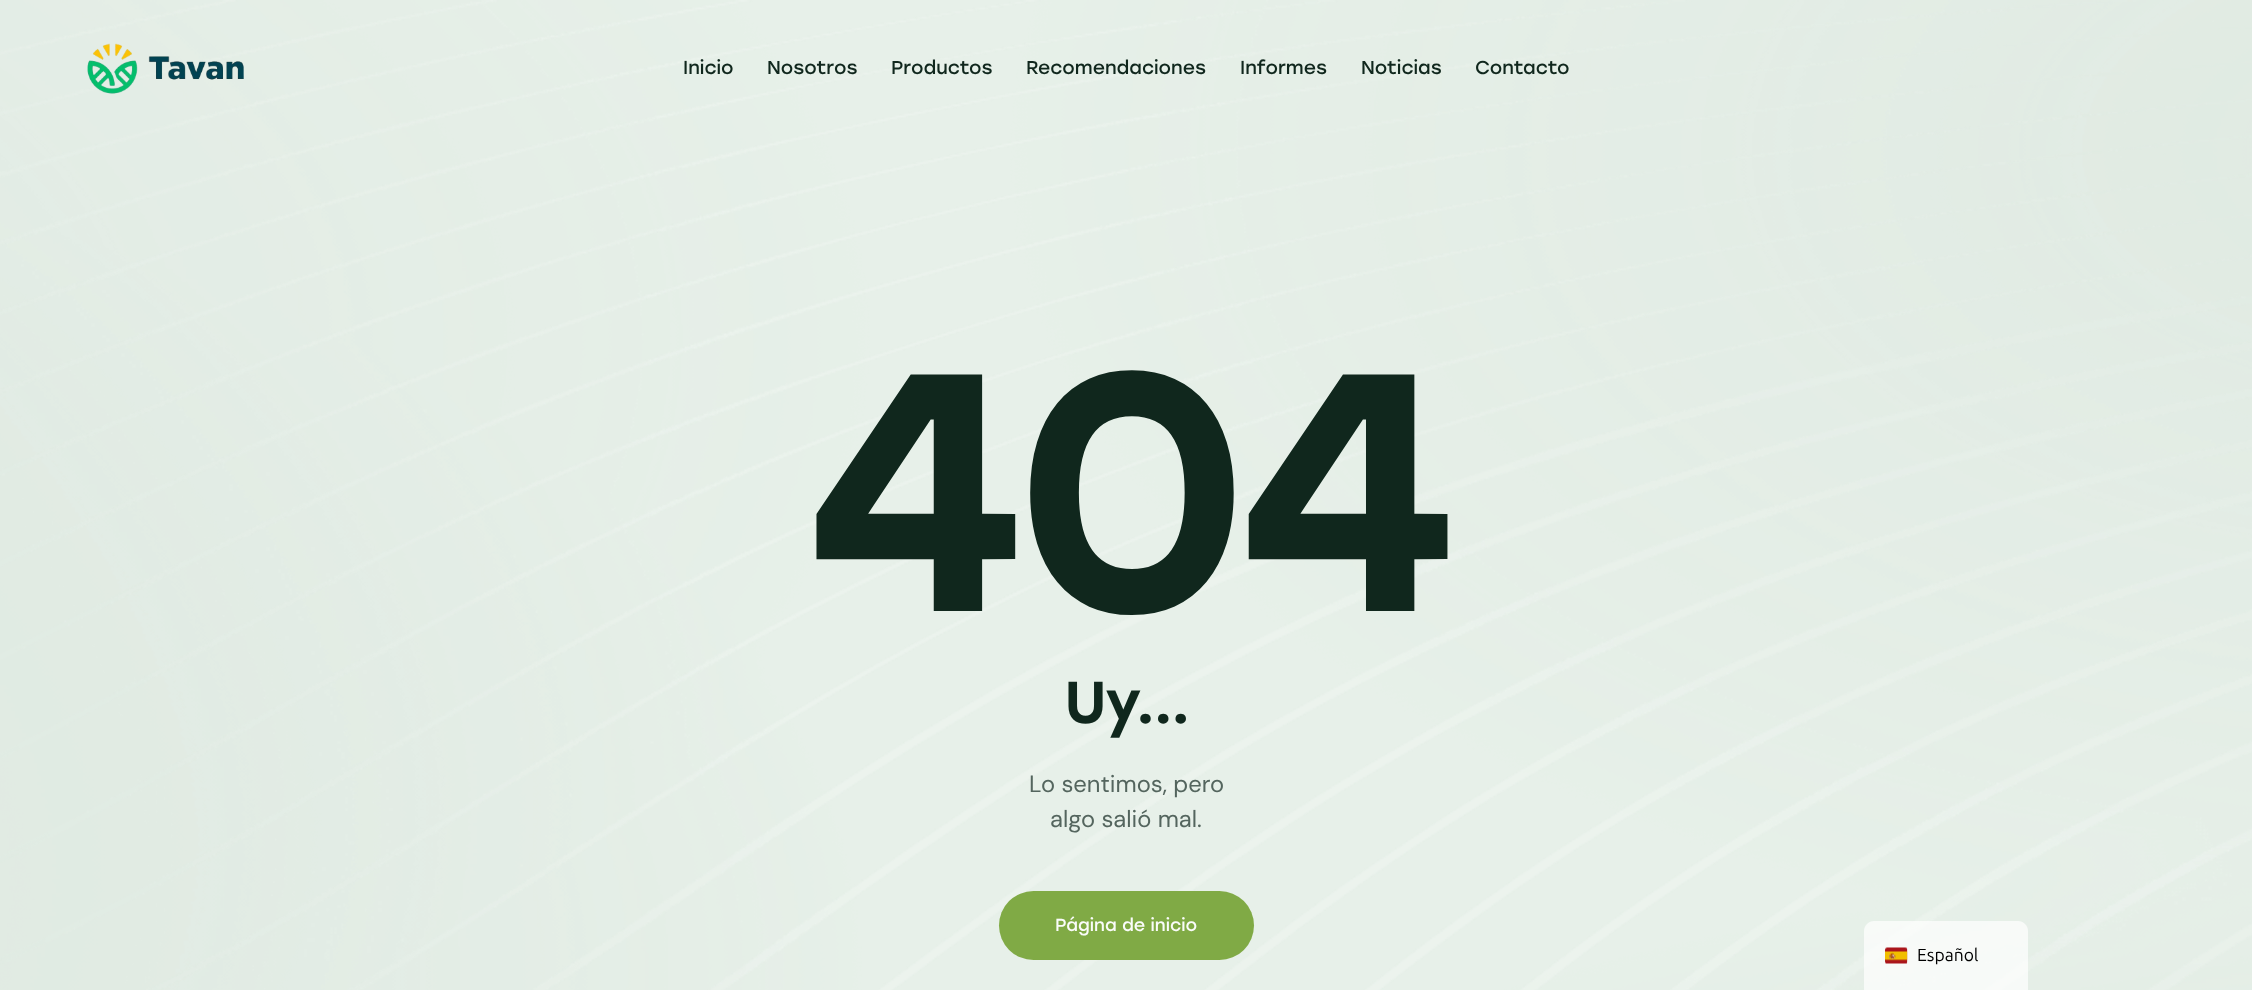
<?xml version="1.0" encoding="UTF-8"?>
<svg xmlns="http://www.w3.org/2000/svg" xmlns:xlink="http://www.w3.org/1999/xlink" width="2252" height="990">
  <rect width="100%" height="100%" fill="#e7f0e9" />
  <image x="0" y="0" width="2252" height="990" xlink:href="image1.png" />
  <image x="87" y="43" width="157" height="51" xlink:href="image2.png" />
  <rect x="999" y="891" width="255" height="69" rx="34.5" fill="#80aa45" />
  <path d="M 1874 921 h 144 c 5.5 0 10 4.5 10 10 v 59 h -164 v -59 c 0 -5.5 4.5 -10 10 -10 z" fill="#ffffff" fill-opacity="0.7" />
  <image x="1885" y="947" width="23" height="17" xlink:href="image3.png" />
  <text x="683" y="74" style="font-family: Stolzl; font-size: 18.75px; fill: #10271d">Inicio</text>
  <text x="767" y="74" style="font-family: Stolzl; font-size: 18.75px; fill: #10271d">Nosotros</text>
  <text x="891" y="74" style="font-family: Stolzl; font-size: 18.75px; fill: #10271d">Productos</text>
  <text x="1026" y="74" style="font-family: Stolzl; font-size: 18.75px; fill: #10271d">Recomendaciones</text>
  <text x="1240" y="74" style="font-family: Stolzl; font-size: 18.75px; fill: #10271d">Informes</text>
  <text x="1361" y="74" style="font-family: Stolzl; font-size: 18.75px; fill: #10271d">Noticias</text>
  <text x="1475" y="74" style="font-family: Stolzl; font-size: 18.75px; fill: #10271d">Contacto</text>
  <text x="807" y="611" style="font-family: Stolzl; font-size: 338px; font-weight: 500; letter-spacing: -10px; fill: #10271d">404</text>
  <text x="1064" y="723" style="font-family: Stolzl; font-size: 59px; font-weight: 500; letter-spacing: -1.75px; fill: #10271d">Uy...</text>
  <text x="1029" y="792" style="font-family: DM Sans; font-size: 23.75px; fill: #54655e">Lo sentimos, pero</text>
  <text x="1050" y="827" style="font-family: DM Sans; font-size: 23.75px; fill: #54655e">algo salió mal.</text>
  <text x="1055" y="931" style="font-family: Stolzl; font-size: 17.5px; fill: #fafcfa">Página de inicio</text>
  <text x="1917" y="961" style="font-family: Ubuntu; font-size: 17.5px; fill: #000000">Español</text>
</svg>
